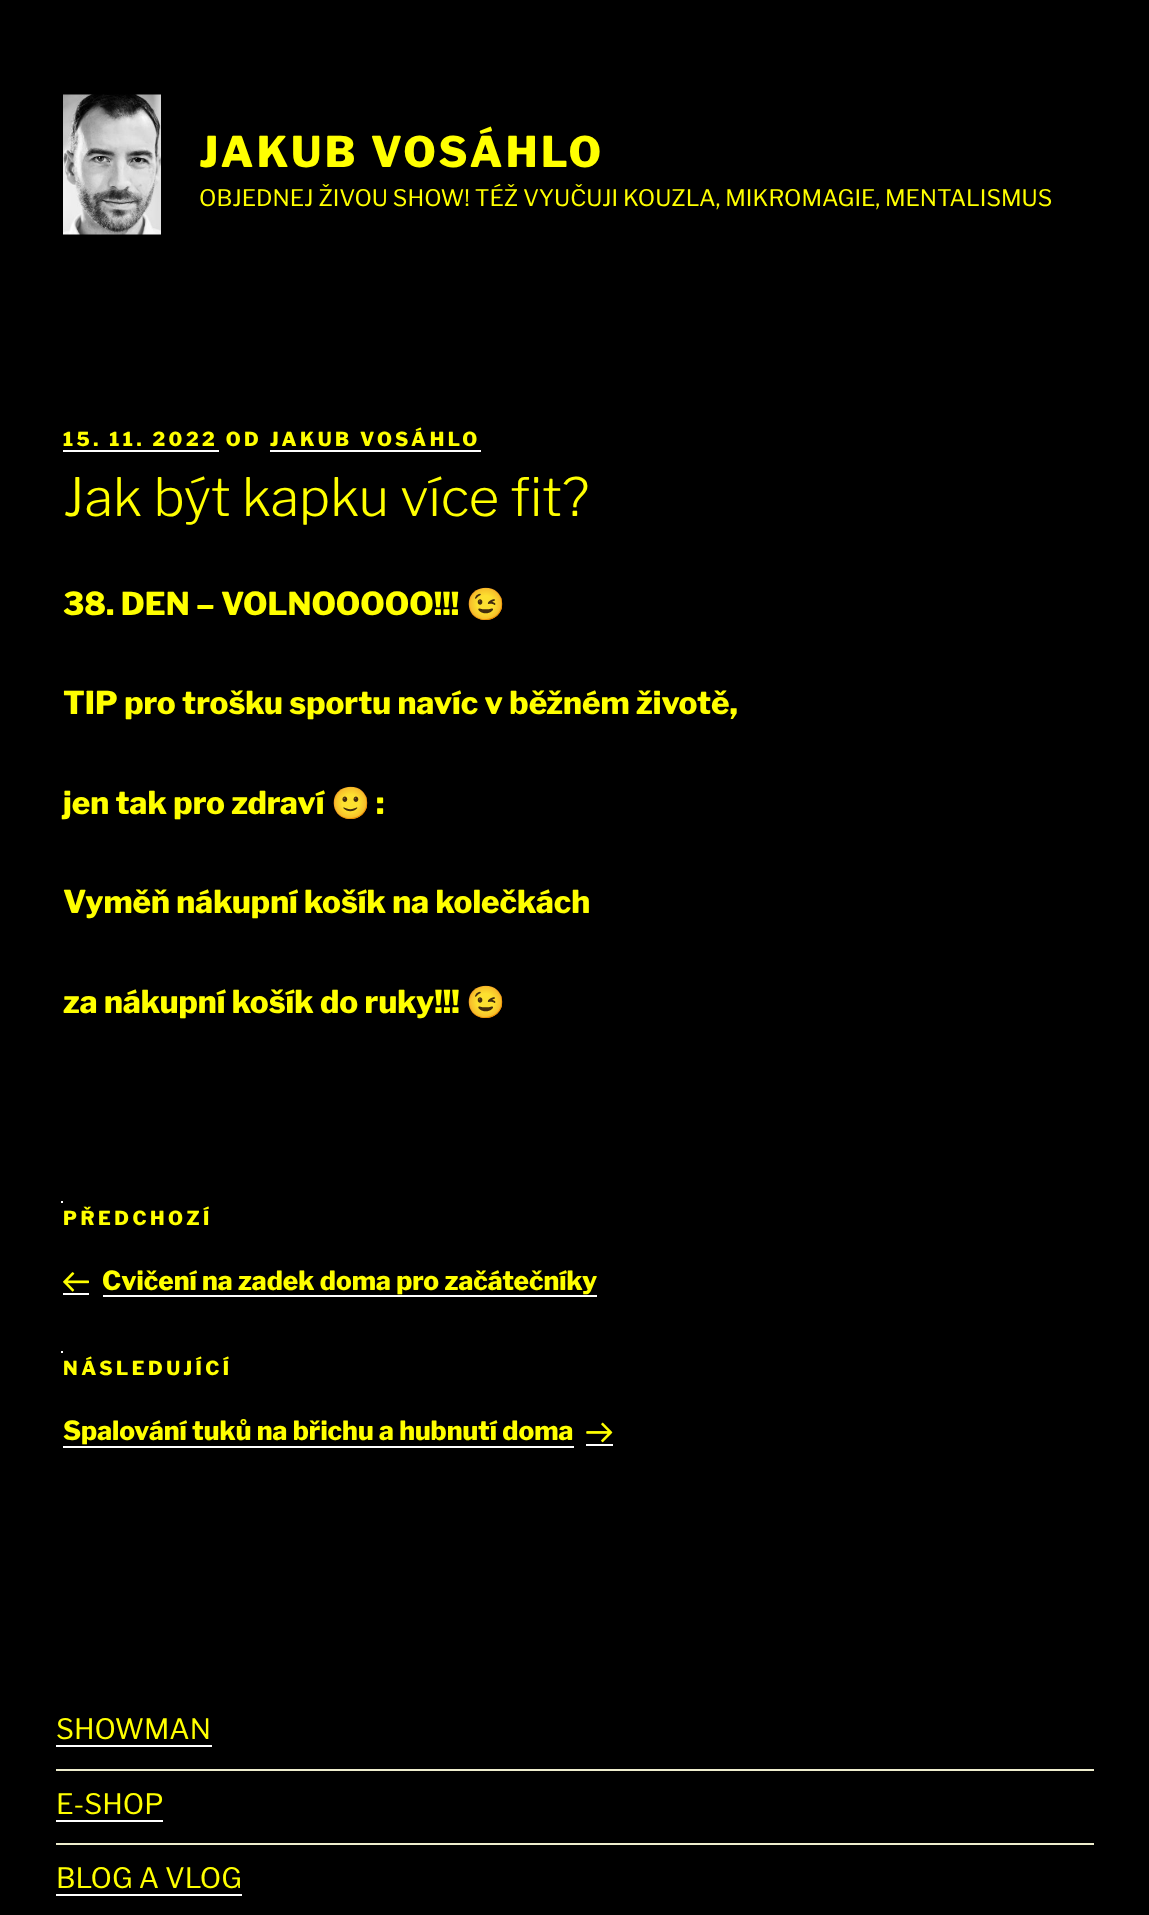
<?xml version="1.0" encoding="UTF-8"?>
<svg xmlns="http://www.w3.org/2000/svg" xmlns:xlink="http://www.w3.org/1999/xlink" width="1149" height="1915">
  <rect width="100%" height="100%" fill="#000000" />
  <image x="63" y="94" width="98" height="141" xlink:href="image1.png" />
  <rect x="63" y="450" width="156" height="2" fill="#ffffff" />
  <rect x="270" y="450" width="211" height="2" fill="#ffffff" />
  <rect x="61" y="1201" width="2" height="2" fill="#ffffff" />
  <rect x="63" y="1293" width="26" height="2" fill="#ffffff" />
  <rect x="103" y="1295" width="494" height="2" fill="#ffffff" />
  <image x="63" y="1272" width="26" height="20" xlink:href="image2.png" />
  <rect x="61" y="1351" width="2" height="2" fill="#ffffff" />
  <rect x="63" y="1446" width="511" height="2" fill="#ffffff" />
  <rect x="586" y="1444" width="27" height="2" fill="#ffffff" />
  <image x="586" y="1422" width="27" height="21" xlink:href="image3.png" />
  <rect x="56" y="1769" width="1038" height="2" fill="#eeedcd" />
  <rect x="56" y="1745" width="156" height="2" fill="#ffffff" />
  <rect x="56" y="1843" width="1038" height="2" fill="#eeedcd" />
  <rect x="56" y="1820" width="107" height="2" fill="#ffffff" />
  <rect x="56" y="1894" width="186" height="2" fill="#ffffff" />
  <text x="199" y="167" style="font-family: Libre Franklin; font-size: 42px; font-weight: 100; letter-spacing: 3.4px; fill: #ffff00">JAKUB VOSÁHLO</text>
  <text x="199" y="206" style="font-family: 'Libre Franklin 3'; font-size: 22.75px; font-weight: 100; fill: #ffff00">OBJEDNEJ ŽIVOU SHOW! TÉŽ VYUČUJI KOUZLA, MIKROMAGIE, MENTALISMUS</text>
  <text x="63" y="446" style="font-family: Libre Franklin; font-size: 19.25px; font-weight: 100; letter-spacing: 3.5px; fill: #ffff00">15. 11. 2022 OD JAKUB VOSÁHLO</text>
  <text x="63" y="516" style="font-family: 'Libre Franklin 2'; font-size: 52.5px; font-weight: 100; fill: #ffff00">Jak být kapku více fit?</text>
  <text x="63" y="615" style="font-family: Libre Franklin; font-size: 31.5px; font-weight: 100; fill: #ffff00">38. DEN – VOLNOOOOO!!!</text>
  <text x="466" y="615" style="font-family: Noto Color Emoji; font-size: 31.5px; font-weight: bold; fill: #ffff00">😉</text>
  <text x="63" y="714" style="font-family: Libre Franklin; font-size: 31.5px; font-weight: 100; fill: #ffff00">TIP pro trošku sportu navíc v běžném životě,</text>
  <text x="63" y="814" style="font-family: Libre Franklin; font-size: 31.5px; font-weight: 100; fill: #ffff00">jen tak pro zdraví</text>
  <text x="331" y="814" style="font-family: Noto Color Emoji; font-size: 31.5px; font-weight: bold; fill: #ffff00">🙂</text>
  <text x="376" y="814" style="font-family: Libre Franklin; font-size: 31.5px; font-weight: 100; fill: #ffff00">:</text>
  <text x="63" y="913" style="font-family: Libre Franklin; font-size: 31.5px; font-weight: 100; fill: #ffff00">Vyměň nákupní košík na kolečkách</text>
  <text x="63" y="1013" style="font-family: Libre Franklin; font-size: 31.5px; font-weight: 100; fill: #ffff00">za nákupní košík do ruky!!!</text>
  <text x="466" y="1013" style="font-family: Noto Color Emoji; font-size: 31.5px; font-weight: bold; fill: #ffff00">😉</text>
  <text x="63" y="1225" style="font-family: Libre Franklin; font-size: 19.25px; font-weight: 100; letter-spacing: 3.5px; fill: #ffff00">PŘEDCHOZÍ</text>
  <text x="102" y="1290" style="font-family: Libre Franklin; font-size: 26.25px; font-weight: 100; fill: #ffff00">Cvičení na zadek doma pro začátečníky</text>
  <text x="63" y="1375" style="font-family: Libre Franklin; font-size: 19.25px; font-weight: 100; letter-spacing: 3.5px; fill: #ffff00">NÁSLEDUJÍCÍ</text>
  <text x="63" y="1440" style="font-family: Libre Franklin; font-size: 26.25px; font-weight: 100; fill: #ffff00">Spalování tuků na břichu a hubnutí doma</text>
  <text x="56" y="1739" style="font-family: 'Libre Franklin 3'; font-size: 28px; font-weight: 100; fill: #ffff00">SHOWMAN</text>
  <text x="56" y="1814" style="font-family: 'Libre Franklin 3'; font-size: 28px; font-weight: 100; fill: #ffff00">E-SHOP</text>
  <text x="56" y="1888" style="font-family: 'Libre Franklin 3'; font-size: 28px; font-weight: 100; fill: #ffff00">BLOG A VLOG</text>
</svg>
